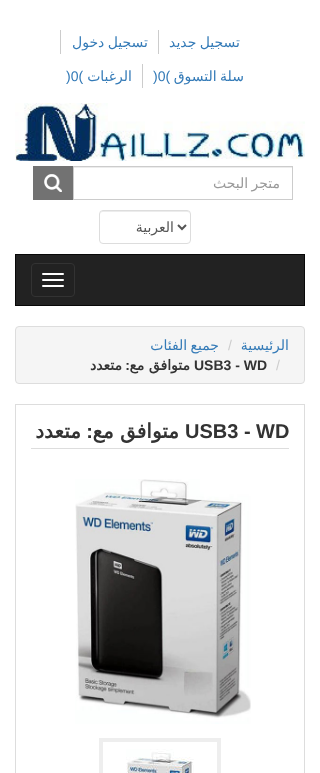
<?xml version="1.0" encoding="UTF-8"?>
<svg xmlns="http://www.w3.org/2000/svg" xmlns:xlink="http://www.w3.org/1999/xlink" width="320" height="773">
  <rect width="100%" height="100%" fill="#ffffff" />
  <rect x="158" y="30" width="1" height="24" fill="#cccccc" />
  <rect x="60" y="30" width="1" height="24" fill="#cccccc" />
  <rect x="142" y="64" width="1" height="24" fill="#cccccc" />
  <image x="15" y="103" width="290" height="58" xlink:href="image1.png" />
  <rect x="74" y="167" width="218" height="1" fill="#ececec" />
  <rect x="73.5" y="166.5" width="219" height="33" fill="none" stroke="#cccccc" />
  <rect x="33" y="166" width="40" height="34" fill="#727272" />
  <image x="44" y="174" width="18" height="18" xlink:href="image2.png" />
  <path d="M 103 212 h 84 c 2 0 3 1 3 3 c 0 -8 -13 -4 -17 -4 h -56 c -4 0 -17 -4 -17 4 c 0 -2 1 -3 3 -3 z" fill="#ececec" />
  <rect x="99.5" y="210.5" width="91" height="33" rx="3.5" fill="none" stroke="#dddddd" />
  <path d="M 178 225 l 4 4 l 4 -4" fill="none" stroke="#555555" stroke-width="2" />
  <rect x="15.5" y="254.5" width="289" height="51" fill="#222222" stroke="#080808" />
  <rect x="31.5" y="263.5" width="43" height="33" rx="3.5" fill="none" stroke="#333333" />
  <rect x="42" y="273" width="22" height="2" rx="1" fill="#ffffff" />
  <rect x="42" y="279" width="22" height="2" rx="1" fill="#ffffff" />
  <rect x="42" y="285" width="22" height="2" rx="1" fill="#ffffff" />
  <rect x="15.5" y="326.5" width="289" height="57" rx="3.5" fill="#f5f5f5" stroke="#dddddd" />
  <rect x="15.5" y="404.5" width="289" height="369" fill="none" stroke="#dddddd" />
  <rect x="31" y="448" width="258" height="1" fill="#dddddd" />
  <image x="75" y="479" width="176" height="245" xlink:href="image3.png" />
  <rect x="101" y="740" width="118" height="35" fill="none" stroke="#eeeeee" stroke-width="4" />
  <image x="126" y="749" width="68" height="24" xlink:href="image4.png" />
  <text x="240" y="47" word-spacing="-1" style="font-family: DejaVu Sans; font-size: 14px; direction: rtl; fill: #337ab7">تسجيل جديد</text>
  <text x="148" y="47" word-spacing="-1" style="font-family: DejaVu Sans; font-size: 14px; direction: rtl; fill: #337ab7">تسجيل دخول</text>
  <text x="244" y="81" word-spacing="-1" style="font-family: DejaVu Sans; font-size: 14px; direction: rtl; fill: #337ab7">سلة التسوق</text>
  <text x="153" y="81" style="font-family: Liberation Sans; font-size: 14px; fill: #337ab7">)0(</text>
  <text x="132" y="81" style="font-family: DejaVu Sans; font-size: 14px; direction: rtl; fill: #337ab7">الرغبات</text>
  <text x="66" y="81" style="font-family: Liberation Sans; font-size: 14px; fill: #337ab7">)0(</text>
  <text x="280" y="188" word-spacing="-1" style="font-family: DejaVu Sans; font-size: 14px; direction: rtl; fill: #999999">متجر البحث</text>
  <text x="174" y="232" style="font-family: DejaVu Sans; font-size: 14px; direction: rtl; fill: #555555">العربية</text>
  <text x="289" y="350" style="font-family: DejaVu Sans; font-size: 14px; direction: rtl; fill: #337ab7">الرئيسية</text>
  <text x="228" y="350" style="font-family: Liberation Sans; font-size: 14px; fill: #cccccc">/</text>
  <text x="219" y="350" word-spacing="-1" style="font-family: DejaVu Sans; font-size: 14px; direction: rtl; fill: #337ab7">جميع الفئات</text>
  <text x="276" y="370" style="font-family: Liberation Sans; font-size: 14px; fill: #cccccc">/</text>
  <text x="194" y="370" style="font-family: Liberation Sans; font-size: 14px; font-weight: bold; fill: #333333">USB3 - WD</text>
  <text x="190" y="370" style="font-family: DejaVu Sans; font-size: 14px; font-weight: bold; direction: rtl; fill: #333333">متوافق مع</text>
  <text x="130" y="370" style="font-family: Liberation Sans; font-size: 14px; font-weight: bold; direction: rtl; fill: #333333">:</text>
  <text x="122" y="370" style="font-family: DejaVu Sans; font-size: 14px; font-weight: bold; direction: rtl; fill: #333333">متعدد</text>
  <text x="185" y="438" style="font-family: Liberation Sans; font-size: 20px; font-weight: bold; fill: #333333">USB3 - WD</text>
  <text x="179" y="438" style="font-family: DejaVu Sans; font-size: 20px; font-weight: bold; direction: rtl; fill: #333333">متوافق مع</text>
  <text x="93" y="438" style="font-family: Liberation Sans; font-size: 20px; font-weight: bold; direction: rtl; fill: #333333">:</text>
  <text x="81" y="438" style="font-family: DejaVu Sans; font-size: 20px; font-weight: bold; direction: rtl; fill: #333333">متعدد</text>
</svg>
